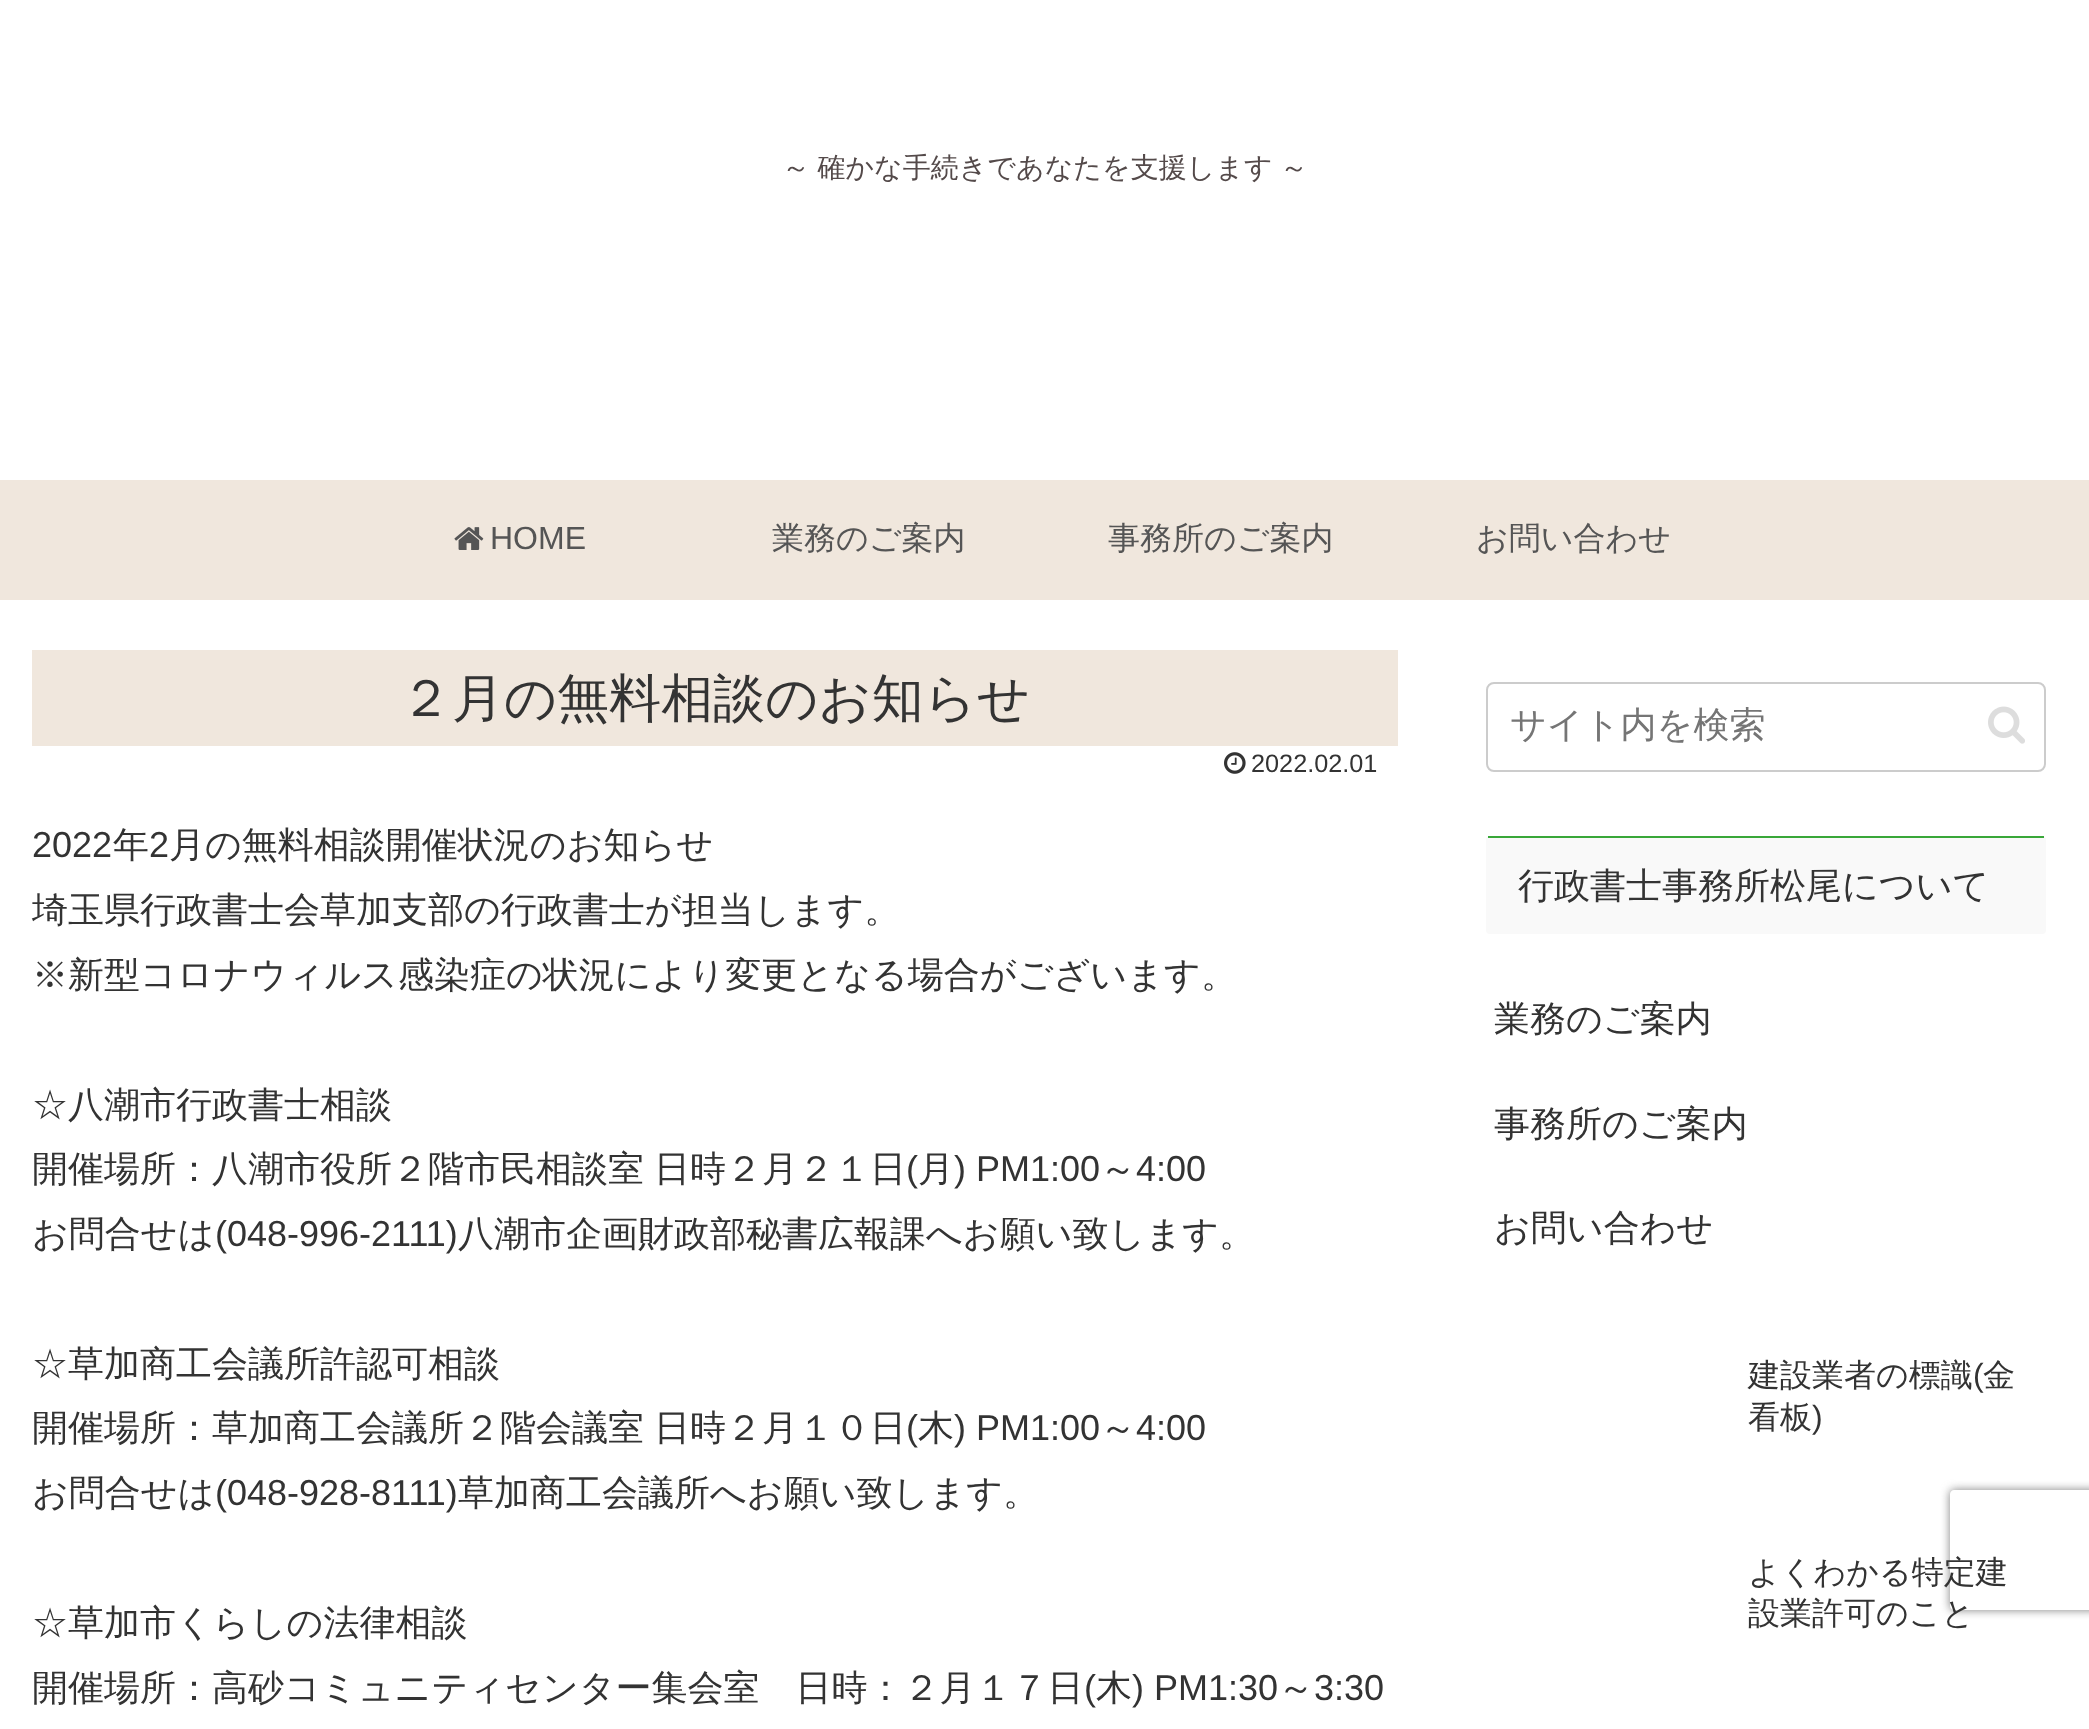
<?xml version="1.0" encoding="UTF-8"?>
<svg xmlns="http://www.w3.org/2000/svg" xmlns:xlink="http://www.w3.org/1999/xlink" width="2089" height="1729">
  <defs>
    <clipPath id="clip1"><path d="M 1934 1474 h 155 v 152 h -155 z m 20 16 h 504 c 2 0 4 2 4 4 v 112 c 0 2 -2 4 -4 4 h -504 c -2 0 -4 -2 -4 -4 v -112 c 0 -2 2 -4 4 -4 z" clip-rule="evenodd" /></clipPath>
  </defs>
  <rect width="100%" height="100%" fill="#ffffff" />
  <rect y="480" width="2089" height="120" fill="#f0e7dd" />
  <image x="454" y="527" width="30" height="23" xlink:href="image1.png" />
  <rect x="32" y="650" width="1366" height="96" fill="#f0e7dd" />
  <image x="1224" y="752" width="22" height="22" xlink:href="image2.png" />
  <rect x="1487" y="683" width="558" height="88" rx="7" fill="none" stroke="#cccccc" stroke-width="2" />
  <image x="1988" y="706" width="37" height="38" xlink:href="image3.png" />
  <rect x="1486" y="836" width="560" height="98" rx="4" fill="#f9f9f9" />
  <rect x="1488" y="836" width="556" height="2" fill="#39a739" />
  <g clip-path="url(#clip1)">
    <rect x="1950" y="1490" width="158" height="120" rx="4" fill="#808080" filter="blur(5px)" />
  </g>
  <text x="782" y="177" word-spacing="-1" style="font-family: WenQuanYi Zen Hei; font-size: 28px; font-weight: 500; fill: #544a4a">～ 確かな手続きであなたを支援します ～</text>
  <text x="490" y="549" style="font-family: Liberation Sans; font-size: 32px; fill: #555555">HOME</text>
  <text x="772" y="549" style="font-family: WenQuanYi Zen Hei; font-size: 32px; font-weight: 500; fill: #555555">業務のご案内</text>
  <text x="1108" y="549" style="font-family: WenQuanYi Zen Hei; font-size: 32px; font-weight: 500; fill: #555555">事務所のご案内</text>
  <text x="1476" y="549" style="font-family: WenQuanYi Zen Hei; font-size: 32px; font-weight: 500; fill: #555555">お問い合わせ</text>
  <text x="400" y="716" style="font-family: WenQuanYi Zen Hei; font-size: 52px; font-weight: 500; fill: #333333">２月の無料相談のお知らせ</text>
  <text x="1251" y="772" style="font-family: Liberation Sans; font-size: 25.25px; fill: #333333">2022.02.01</text>
  <text x="32" y="857" style="font-family: Liberation Sans; font-size: 36px; fill: #333333">2022</text>
  <text x="113" y="857" style="font-family: WenQuanYi Zen Hei; font-size: 36px; font-weight: 500; fill: #333333">年</text>
  <text x="149" y="857" style="font-family: Liberation Sans; font-size: 36px; fill: #333333">2</text>
  <text x="169" y="857" style="font-family: WenQuanYi Zen Hei; font-size: 36px; font-weight: 500; fill: #333333">月の無料相談開催状況のお知らせ</text>
  <text x="32" y="922" style="font-family: WenQuanYi Zen Hei; font-size: 36px; font-weight: 500; fill: #333333">埼玉県行政書士会草加支部の行政書士が担当します。</text>
  <text x="32" y="987" style="font-family: WenQuanYi Zen Hei; font-size: 36px; font-weight: 500; fill: #333333">※新型コロナウィルス感染症の状況により変更となる場合がございます。</text>
  <text x="32" y="1117" style="font-family: WenQuanYi Zen Hei; font-size: 36px; font-weight: 500; fill: #333333">☆八潮市行政書士相談</text>
  <text x="32" y="1181" style="font-family: WenQuanYi Zen Hei; font-size: 36px; font-weight: 500; fill: #333333">開催場所：八潮市役所２階市民相談室</text>
  <text x="654" y="1181" style="font-family: WenQuanYi Zen Hei; font-size: 36px; font-weight: 500; fill: #333333">日時２月２１日</text>
  <text x="906" y="1181" style="font-family: Liberation Sans; font-size: 36px; fill: #333333">(</text>
  <text x="918" y="1181" style="font-family: WenQuanYi Zen Hei; font-size: 36px; font-weight: 500; fill: #333333">月</text>
  <text x="954" y="1181" style="font-family: Liberation Sans; font-size: 36px; fill: #333333">) PM1:00</text>
  <text x="1100" y="1181" style="font-family: WenQuanYi Zen Hei; font-size: 36px; font-weight: 500; fill: #333333">～</text>
  <text x="1136" y="1181" style="font-family: Liberation Sans; font-size: 36px; fill: #333333">4:00</text>
  <text x="32" y="1246" style="font-family: WenQuanYi Zen Hei; font-size: 36px; font-weight: 500; fill: #333333">お問合せは</text>
  <text x="215" y="1246" style="font-family: Liberation Sans; font-size: 36px; fill: #333333">(048-996-2111)</text>
  <text x="458" y="1246" style="font-family: WenQuanYi Zen Hei; font-size: 36px; font-weight: 500; fill: #333333">八潮市企画財政部秘書広報課へお願い致します。</text>
  <text x="32" y="1376" style="font-family: WenQuanYi Zen Hei; font-size: 36px; font-weight: 500; fill: #333333">☆草加商工会議所許認可相談</text>
  <text x="32" y="1440" style="font-family: WenQuanYi Zen Hei; font-size: 36px; font-weight: 500; fill: #333333">開催場所：草加商工会議所２階会議室</text>
  <text x="654" y="1440" style="font-family: WenQuanYi Zen Hei; font-size: 36px; font-weight: 500; fill: #333333">日時２月１０日</text>
  <text x="906" y="1440" style="font-family: Liberation Sans; font-size: 36px; fill: #333333">(</text>
  <text x="918" y="1440" style="font-family: WenQuanYi Zen Hei; font-size: 36px; font-weight: 500; fill: #333333">木</text>
  <text x="954" y="1440" style="font-family: Liberation Sans; font-size: 36px; fill: #333333">) PM1:00</text>
  <text x="1100" y="1440" style="font-family: WenQuanYi Zen Hei; font-size: 36px; font-weight: 500; fill: #333333">～</text>
  <text x="1136" y="1440" style="font-family: Liberation Sans; font-size: 36px; fill: #333333">4:00</text>
  <text x="32" y="1505" style="font-family: WenQuanYi Zen Hei; font-size: 36px; font-weight: 500; fill: #333333">お問合せは</text>
  <text x="215" y="1505" style="font-family: Liberation Sans; font-size: 36px; fill: #333333">(048-928-8111)</text>
  <text x="458" y="1505" style="font-family: WenQuanYi Zen Hei; font-size: 36px; font-weight: 500; fill: #333333">草加商工会議所へお願い致します。</text>
  <text x="32" y="1635" style="font-family: WenQuanYi Zen Hei; font-size: 36px; font-weight: 500; fill: #333333">☆草加市くらしの法律相談</text>
  <text x="32" y="1700" style="font-family: WenQuanYi Zen Hei; font-size: 36px; font-weight: 500; fill: #333333">開催場所：高砂コミュニティセンター集会室　日時：２月１７日</text>
  <text x="1084" y="1700" style="font-family: Liberation Sans; font-size: 36px; fill: #333333">(</text>
  <text x="1096" y="1700" style="font-family: WenQuanYi Zen Hei; font-size: 36px; font-weight: 500; fill: #333333">木</text>
  <text x="1132" y="1700" style="font-family: Liberation Sans; font-size: 36px; fill: #333333">) PM1:30</text>
  <text x="1278" y="1700" style="font-family: WenQuanYi Zen Hei; font-size: 36px; font-weight: 500; fill: #333333">～</text>
  <text x="1314" y="1700" style="font-family: Liberation Sans; font-size: 36px; fill: #333333">3:30</text>
  <text x="1510" y="737" style="font-family: WenQuanYi Zen Hei; font-size: 36px; font-weight: 500; fill: #757575">サイト内を検索</text>
  <text x="1518" y="898" style="font-family: WenQuanYi Zen Hei; font-size: 36px; font-weight: 500; fill: #333333">行政書士事務所松尾について</text>
  <text x="1494" y="1031" style="font-family: WenQuanYi Zen Hei; font-size: 36px; font-weight: 500; fill: #333333">業務のご案内</text>
  <text x="1494" y="1136" style="font-family: WenQuanYi Zen Hei; font-size: 36px; font-weight: 500; fill: #333333">事務所のご案内</text>
  <text x="1494" y="1240" style="font-family: WenQuanYi Zen Hei; font-size: 36px; font-weight: 500; fill: #333333">お問い合わせ</text>
  <text x="1748" y="1386" style="font-family: WenQuanYi Zen Hei; font-size: 32px; font-weight: 500; fill: #333333">建設業者の標識</text>
  <text x="1973" y="1386" style="font-family: Liberation Sans; font-size: 32px; fill: #333333">(</text>
  <text x="1983" y="1386" style="font-family: WenQuanYi Zen Hei; font-size: 32px; font-weight: 500; fill: #333333">金</text>
  <text x="1748" y="1428" style="font-family: WenQuanYi Zen Hei; font-size: 32px; font-weight: 500; fill: #333333">看板</text>
  <text x="1812" y="1428" style="font-family: Liberation Sans; font-size: 32px; fill: #333333">)</text>
  <text x="1748" y="1583" style="font-family: WenQuanYi Zen Hei; font-size: 32px; font-weight: 500; fill: #333333">よくわかる特定建</text>
  <text x="1748" y="1624" style="font-family: WenQuanYi Zen Hei; font-size: 32px; font-weight: 500; fill: #333333">設業許可のこと</text>
</svg>
